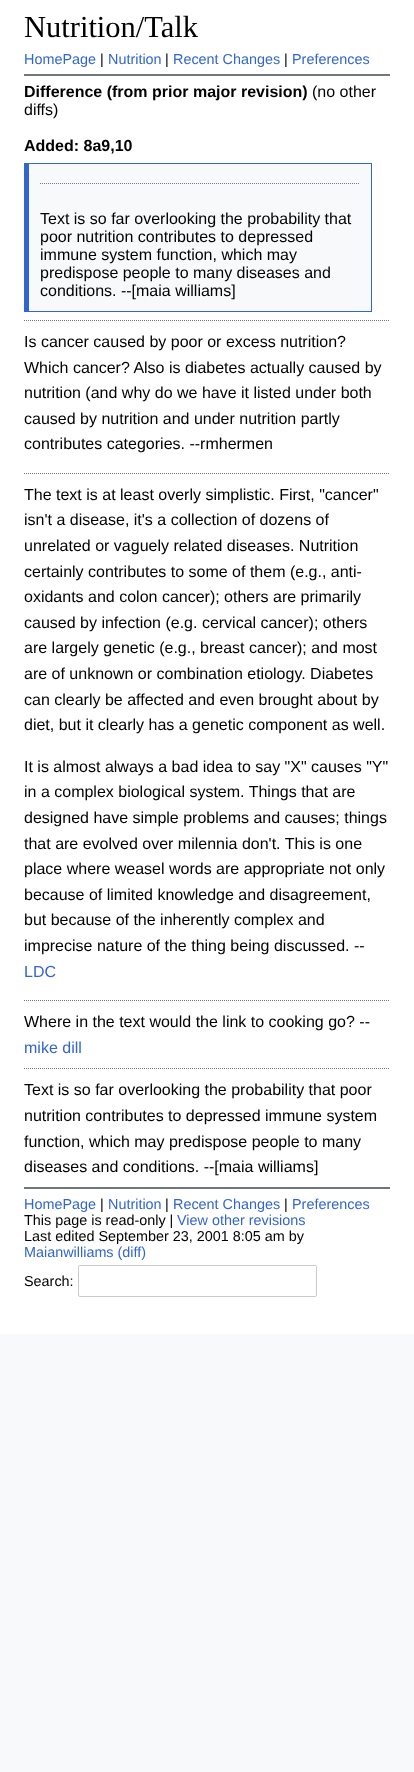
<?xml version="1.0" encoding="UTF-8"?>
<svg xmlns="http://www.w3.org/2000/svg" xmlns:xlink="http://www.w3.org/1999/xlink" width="414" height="1772">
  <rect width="100%" height="100%" fill="#f8f9fa" />
  <rect width="414" height="1334" fill="#ffffff" />
  <rect x="24" y="74" width="366" height="2" fill="#72777d" />
  <rect x="29" y="164" width="342" height="147" fill="#f8f9fa" />
  <rect x="24" y="163" width="348" height="1" fill="#3366cc" />
  <rect x="371" y="163" width="1" height="149" fill="#3366cc" />
  <rect x="24" y="311" width="348" height="1" fill="#3366cc" />
  <rect x="24" y="163" width="5" height="149" fill="#3366cc" />
  <path d="M 40 183.5 h 320" fill="none" stroke="#72777d" stroke-dasharray="1 1" />
  <path d="M 24 320.5 h 366" fill="none" stroke="#72777d" stroke-dasharray="1 1" />
  <path d="M 24 473.5 h 366" fill="none" stroke="#72777d" stroke-dasharray="1 1" />
  <path d="M 24 1000.5 h 366" fill="none" stroke="#72777d" stroke-dasharray="1 1" />
  <path d="M 24 1068.5 h 366" fill="none" stroke="#72777d" stroke-dasharray="1 1" />
  <rect x="24" y="1187" width="366" height="2" fill="#72777d" />
  <rect x="78.5" y="1265.5" width="238" height="31" rx="1.5" fill="none" stroke="#c8ccd1" />
  <text x="24" y="37" style="font-family: Liberation Serif; font-size: 30.5px; fill: #000000">Nutrition/Talk</text>
  <text x="24" y="64" style="font-family: Liberation Sans; font-size: 14.4px; fill: #3366cc">HomePage</text>
  <text x="100" y="64" style="font-family: Liberation Sans; font-size: 14.4px; fill: #000000">|</text>
  <text x="108" y="64" style="font-family: Liberation Sans; font-size: 14.4px; fill: #3366cc">Nutrition</text>
  <text x="165" y="64" style="font-family: Liberation Sans; font-size: 14.4px; fill: #000000">|</text>
  <text x="173" y="64" style="font-family: Liberation Sans; font-size: 14.4px; fill: #3366cc">Recent Changes</text>
  <text x="284" y="64" style="font-family: Liberation Sans; font-size: 14.4px; fill: #000000">|</text>
  <text x="292" y="64" style="font-family: Liberation Sans; font-size: 14.4px; fill: #3366cc">Preferences</text>
  <text x="24" y="97" style="font-family: Liberation Sans; font-size: 16px; font-weight: bold; fill: #000000">Difference (from prior major revision)</text>
  <text x="312" y="97" style="font-family: Liberation Sans; font-size: 16px; fill: #000000">(no other</text>
  <text x="24" y="115" style="font-family: Liberation Sans; font-size: 16px; fill: #000000">diffs)</text>
  <text x="24" y="151" style="font-family: Liberation Sans; font-size: 16px; font-weight: bold; fill: #000000">Added: 8a9,10</text>
  <text x="40" y="224" style="font-family: Liberation Sans; font-size: 16px; fill: #000000">Text is so far overlooking the probability that</text>
  <text x="40" y="242" style="font-family: Liberation Sans; font-size: 16px; fill: #000000">poor nutrition contributes to depressed</text>
  <text x="40" y="260" style="font-family: Liberation Sans; font-size: 16px; fill: #000000">immune system function, which may</text>
  <text x="40" y="278" style="font-family: Liberation Sans; font-size: 16px; fill: #000000">predispose people to many diseases and</text>
  <text x="40" y="296" style="font-family: Liberation Sans; font-size: 16px; fill: #000000">conditions. --[maia williams]</text>
  <text x="24" y="347" style="font-family: Liberation Sans; font-size: 16px; fill: #000000">Is cancer caused by poor or excess nutrition?</text>
  <text x="24" y="373" style="font-family: Liberation Sans; font-size: 16px; fill: #000000">Which cancer? Also is diabetes actually caused by</text>
  <text x="24" y="398" style="font-family: Liberation Sans; font-size: 16px; fill: #000000">nutrition (and why do we have it listed under both</text>
  <text x="24" y="424" style="font-family: Liberation Sans; font-size: 16px; fill: #000000">caused by nutrition and under nutrition partly</text>
  <text x="24" y="449" style="font-family: Liberation Sans; font-size: 16px; fill: #000000">contributes categories. --rmhermen</text>
  <text x="24" y="500" style="font-family: Liberation Sans; font-size: 16px; fill: #000000">The text is at least overly simplistic. First, "cancer"</text>
  <text x="24" y="525" style="font-family: Liberation Sans; font-size: 16px; fill: #000000">isn't a disease, it's a collection of dozens of</text>
  <text x="24" y="551" style="font-family: Liberation Sans; font-size: 16px; fill: #000000">unrelated or vaguely related diseases. Nutrition</text>
  <text x="24" y="577" style="font-family: Liberation Sans; font-size: 16px; fill: #000000">certainly contributes to some of them (e.g., anti-</text>
  <text x="24" y="602" style="font-family: Liberation Sans; font-size: 16px; fill: #000000">oxidants and colon cancer); others are primarily</text>
  <text x="24" y="628" style="font-family: Liberation Sans; font-size: 16px; fill: #000000">caused by infection (e.g. cervical cancer); others</text>
  <text x="24" y="653" style="font-family: Liberation Sans; font-size: 16px; fill: #000000">are largely genetic (e.g., breast cancer); and most</text>
  <text x="24" y="679" style="font-family: Liberation Sans; font-size: 16px; fill: #000000">are of unknown or combination etiology. Diabetes</text>
  <text x="24" y="705" style="font-family: Liberation Sans; font-size: 16px; fill: #000000">can clearly be affected and even brought about by</text>
  <text x="24" y="730" style="font-family: Liberation Sans; font-size: 16px; fill: #000000">diet, but it clearly has a genetic component as well.</text>
  <text x="24" y="772" style="font-family: Liberation Sans; font-size: 16px; fill: #000000">It is almost always a bad idea to say "X" causes "Y"</text>
  <text x="24" y="797" style="font-family: Liberation Sans; font-size: 16px; fill: #000000">in a complex biological system. Things that are</text>
  <text x="24" y="823" style="font-family: Liberation Sans; font-size: 16px; fill: #000000">designed have simple problems and causes; things</text>
  <text x="24" y="849" style="font-family: Liberation Sans; font-size: 16px; fill: #000000">that are evolved over milennia don't. This is one</text>
  <text x="24" y="874" style="font-family: Liberation Sans; font-size: 16px; fill: #000000">place where weasel words are appropriate not only</text>
  <text x="24" y="900" style="font-family: Liberation Sans; font-size: 16px; fill: #000000">because of limited knowledge and disagreement,</text>
  <text x="24" y="925" style="font-family: Liberation Sans; font-size: 16px; fill: #000000">but because of the inherently complex and</text>
  <text x="24" y="951" style="font-family: Liberation Sans; font-size: 16px; fill: #000000">imprecise nature of the thing being discussed. --</text>
  <text x="24" y="977" style="font-family: Liberation Sans; font-size: 16px; fill: #3366cc">LDC</text>
  <text x="24" y="1027" style="font-family: Liberation Sans; font-size: 16px; fill: #000000">Where in the text would the link to cooking go? --</text>
  <text x="24" y="1053" style="font-family: Liberation Sans; font-size: 16px; fill: #3366cc">mike dill</text>
  <text x="24" y="1095" style="font-family: Liberation Sans; font-size: 16px; fill: #000000">Text is so far overlooking the probability that poor</text>
  <text x="24" y="1121" style="font-family: Liberation Sans; font-size: 16px; fill: #000000">nutrition contributes to depressed immune system</text>
  <text x="24" y="1147" style="font-family: Liberation Sans; font-size: 16px; fill: #000000">function, which may predispose people to many</text>
  <text x="24" y="1172" style="font-family: Liberation Sans; font-size: 16px; fill: #000000">diseases and conditions. --[maia williams]</text>
  <text x="24" y="1209" style="font-family: Liberation Sans; font-size: 14.4px; fill: #3366cc">HomePage</text>
  <text x="100" y="1209" style="font-family: Liberation Sans; font-size: 14.4px; fill: #000000">|</text>
  <text x="108" y="1209" style="font-family: Liberation Sans; font-size: 14.4px; fill: #3366cc">Nutrition</text>
  <text x="165" y="1209" style="font-family: Liberation Sans; font-size: 14.4px; fill: #000000">|</text>
  <text x="173" y="1209" style="font-family: Liberation Sans; font-size: 14.4px; fill: #3366cc">Recent Changes</text>
  <text x="284" y="1209" style="font-family: Liberation Sans; font-size: 14.4px; fill: #000000">|</text>
  <text x="292" y="1209" style="font-family: Liberation Sans; font-size: 14.4px; fill: #3366cc">Preferences</text>
  <text x="24" y="1225" style="font-family: Liberation Sans; font-size: 14.4px; fill: #000000">This page is read-only |</text>
  <text x="177" y="1225" style="font-family: Liberation Sans; font-size: 14.4px; fill: #3366cc">View other revisions</text>
  <text x="24" y="1241" style="font-family: Liberation Sans; font-size: 14.4px; fill: #000000">Last edited September 23, 2001 8:05 am by</text>
  <text x="24" y="1257" style="font-family: Liberation Sans; font-size: 14.4px; fill: #3366cc">Maianwilliams (diff)</text>
  <text x="24" y="1286" style="font-family: Liberation Sans; font-size: 14.4px; fill: #000000">Search:</text>
</svg>
